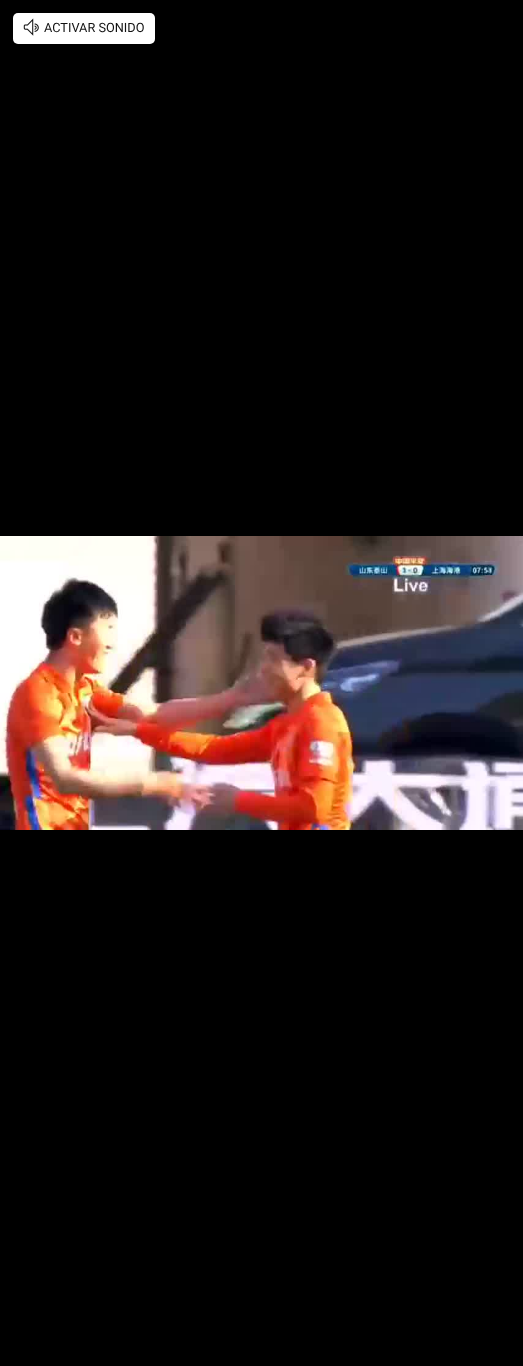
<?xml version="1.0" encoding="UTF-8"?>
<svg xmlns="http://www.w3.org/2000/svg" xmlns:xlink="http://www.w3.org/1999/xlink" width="523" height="1366">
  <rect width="100%" height="100%" fill="#000000" />
  <rect x="13" y="13" width="142" height="31" rx="5" fill="#ffffff" />
  <image x="23" y="18" width="16" height="18" xlink:href="image1.png" />
  <image x="0" y="536" width="523" height="294" xlink:href="image2.png" />
  <text x="44" y="32" style="font-family: Roboto; font-size: 12.75px; fill: #121212">ACTIVAR SONIDO</text>
</svg>
